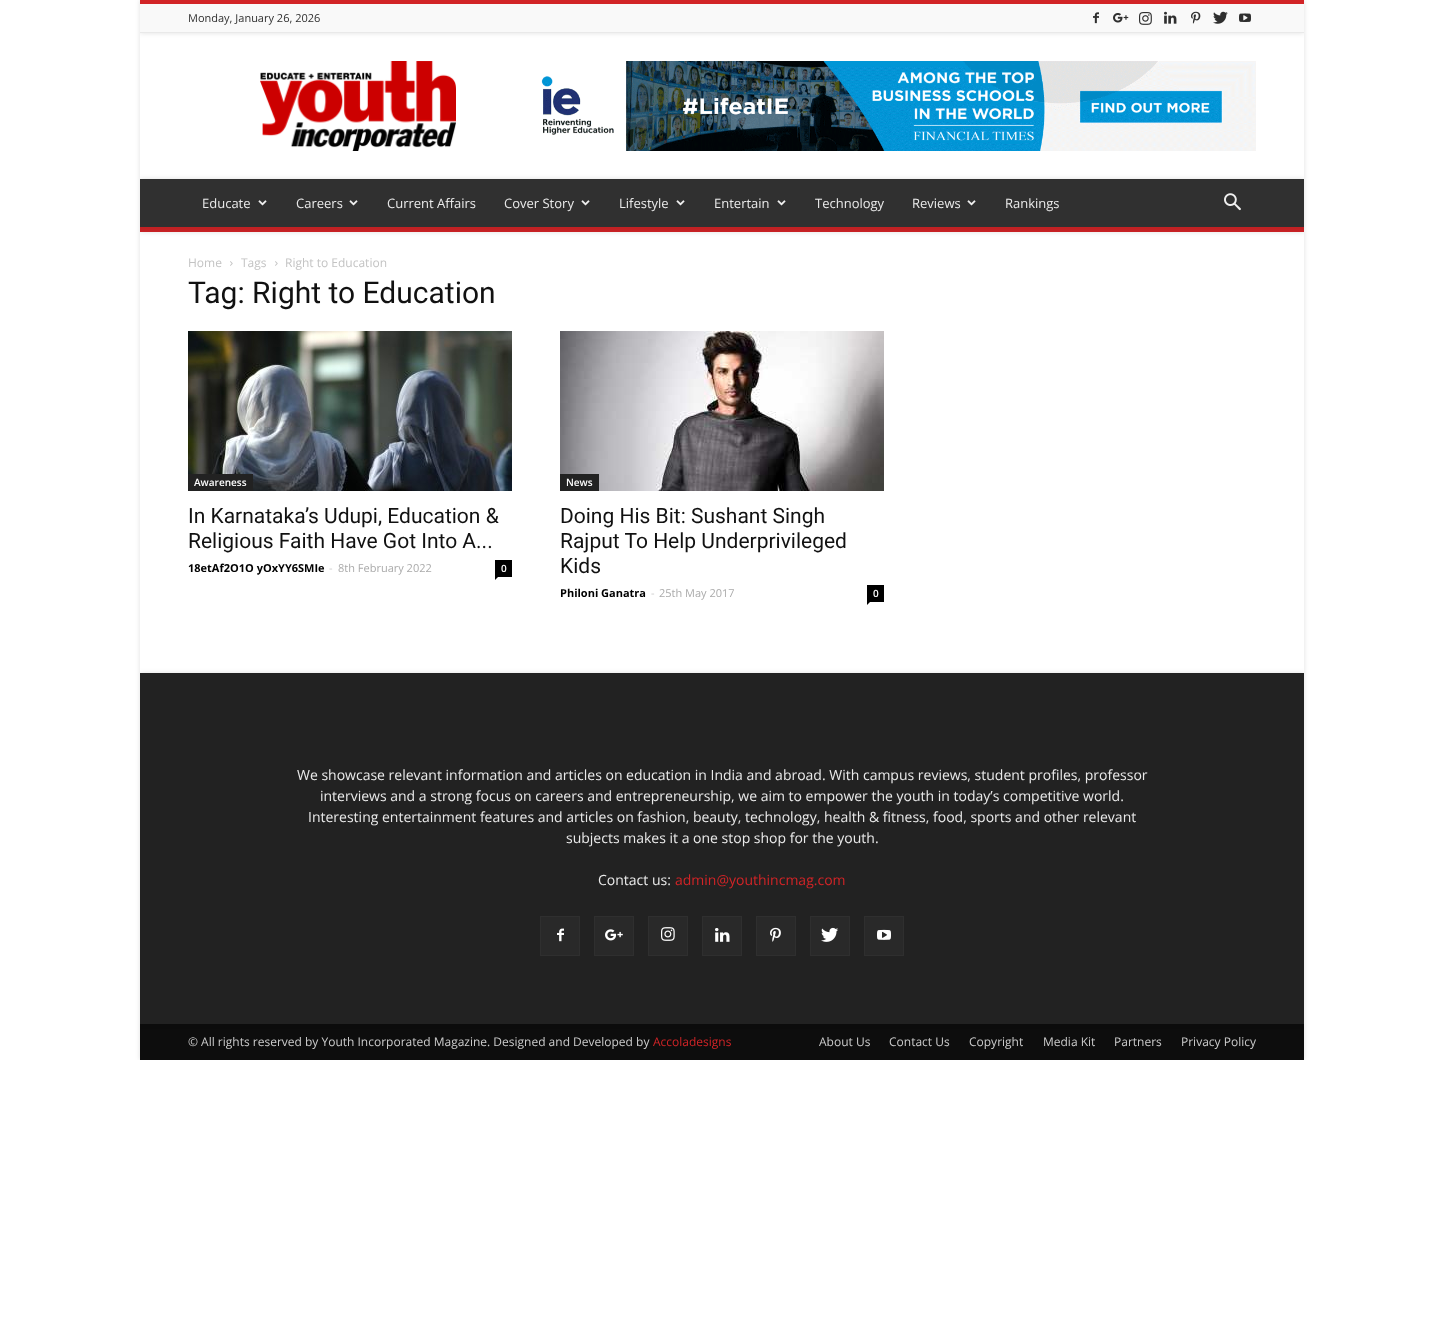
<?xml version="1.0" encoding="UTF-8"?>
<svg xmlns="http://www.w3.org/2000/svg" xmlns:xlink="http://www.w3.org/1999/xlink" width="1444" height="1332">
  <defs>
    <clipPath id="clip1"><path d="M 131 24 h 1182 v 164 h -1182 z m 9 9 h 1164 v 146 h -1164 z" clip-rule="evenodd" /></clipPath>
    <clipPath id="clip2"><path d="M 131 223 h 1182 v 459 h -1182 z m 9 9 h 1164 v 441 h -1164 z" clip-rule="evenodd" /></clipPath>
    <clipPath id="clip3"><rect x="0" y="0" width="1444" height="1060" /></clipPath>
  </defs>
  <rect width="100%" height="100%" fill="#ffffff" />
  <rect x="140" width="1164" height="33" fill="#000000" fill-opacity="0.12" filter="blur(2.5px)" />
  <g clip-path="url(#clip1)">
    <rect x="140" y="33" width="1164" height="146" fill="#000000" fill-opacity="0.12" filter="blur(2.5px)" />
  </g>
  <rect x="140" y="4" width="1164" height="28" fill="#f9f9f9" />
  <rect x="140" width="1164" height="4" fill="#d22427" />
  <rect x="140" y="32" width="1164" height="1" fill="#e9e9e9" />
  <image x="1093" y="12" width="6" height="12" xlink:href="image1.png" />
  <image x="1113" y="13" width="16" height="10" xlink:href="image2.png" />
  <image x="1139" y="12" width="13" height="13" xlink:href="image3.png" />
  <image x="1164" y="11" width="13" height="13" xlink:href="image4.png" />
  <image x="1191" y="11" width="10" height="13" xlink:href="image5.png" />
  <image x="1213" y="11" width="15" height="13" xlink:href="image6.png" />
  <image x="1239" y="13" width="12" height="9" xlink:href="image7.png" />
  <image x="260" y="61" width="196" height="90" xlink:href="image8.png" />
  <image x="541" y="61" width="715" height="90" xlink:href="image9.png" />
  <rect x="140" y="179" width="1164" height="53" fill="#000000" fill-opacity="0.12" filter="blur(2.5px)" />
  <g clip-path="url(#clip2)">
    <rect x="140" y="232" width="1164" height="441" fill="#000000" fill-opacity="0.12" filter="blur(2.5px)" />
  </g>
  <rect x="140" y="179" width="1164" height="48" fill="#303030" />
  <image x="258" y="200" width="9" height="6" xlink:href="image10.png" />
  <image x="349" y="200" width="9" height="6" xlink:href="image10.png" />
  <image x="581" y="200" width="9" height="6" xlink:href="image10.png" />
  <image x="676" y="200" width="9" height="6" xlink:href="image10.png" />
  <image x="777" y="200" width="9" height="6" xlink:href="image10.png" />
  <image x="967" y="200" width="9" height="6" xlink:href="image10.png" />
  <image x="1224" y="193" width="17" height="18" xlink:href="image11.png" />
  <rect x="140" y="227" width="1164" height="5" fill="#d22427" />
  <image x="140" y="227" width="1164" height="5" xlink:href="image12.png" />
  <image x="230" y="261" width="3" height="5" xlink:href="image13.png" />
  <image x="275" y="261" width="3" height="5" xlink:href="image13.png" />
  <image x="188" y="331" width="324" height="160" xlink:href="image14.png" />
  <rect x="188" y="474" width="65" height="17" fill="#222222" />
  <rect x="495" y="560" width="17" height="17" fill="#000000" />
  <path d="M 495 577 h 3 l -3 3 z" fill="#000000" />
  <image x="560" y="331" width="324" height="160" xlink:href="image15.png" />
  <rect x="560" y="474" width="39" height="17" fill="#222222" />
  <rect x="867" y="585" width="17" height="17" fill="#000000" />
  <path d="M 867 602 h 3 l -3 3 z" fill="#000000" />
  <g clip-path="url(#clip3)">
    <rect x="140" y="1024" width="1164" height="36" fill="#000000" fill-opacity="0.12" filter="blur(2.5px)" />
  </g>
  <rect x="140" y="1024" width="1164" height="36" fill="#0d0d0d" />
  <rect x="140" y="673" width="1164" height="351" fill="#000000" fill-opacity="0.12" filter="blur(2.5px)" />
  <rect x="140" y="673" width="1164" height="351" fill="#222222" />
  <rect x="541" y="917" width="38" height="38" fill="#292929" />
  <image x="557" y="928" width="7" height="14" xlink:href="image16.png" />
  <rect x="540.5" y="916.5" width="39" height="39" fill="none" stroke="#2f2f2f" />
  <rect x="595" y="917" width="38" height="38" fill="#292929" />
  <image x="605" y="929" width="18" height="12" xlink:href="image17.png" />
  <rect x="594.5" y="916.5" width="39" height="39" fill="none" stroke="#2f2f2f" />
  <rect x="649" y="917" width="38" height="38" fill="#292929" />
  <image x="661" y="927" width="14" height="14" xlink:href="image18.png" />
  <rect x="648.5" y="916.5" width="39" height="39" fill="none" stroke="#2f2f2f" />
  <rect x="703" y="917" width="38" height="38" fill="#292929" />
  <image x="715" y="928" width="15" height="14" xlink:href="image19.png" />
  <rect x="702.5" y="916.5" width="39" height="39" fill="none" stroke="#2f2f2f" />
  <rect x="757" y="917" width="38" height="38" fill="#292929" />
  <image x="770" y="927" width="11" height="15" xlink:href="image20.png" />
  <rect x="756.5" y="916.5" width="39" height="39" fill="none" stroke="#2f2f2f" />
  <rect x="811" y="917" width="38" height="38" fill="#292929" />
  <image x="821" y="927" width="18" height="15" xlink:href="image21.png" />
  <rect x="810.5" y="916.5" width="39" height="39" fill="none" stroke="#2f2f2f" />
  <rect x="865" y="917" width="38" height="38" fill="#292929" />
  <image x="877" y="929" width="14" height="11" xlink:href="image22.png" />
  <rect x="864.5" y="916.5" width="39" height="39" fill="none" stroke="#2f2f2f" />
  <text x="188" y="22" style="font-family: Open Sans; font-size: 11px; fill: #2f2f2f">Monday, January 26, 2026</text>
  <text x="202" y="208" style="font-family: Open Sans; font-size: 13px; fill: #eaeaea">Educate</text>
  <text x="296" y="208" style="font-family: Open Sans; font-size: 13px; fill: #eaeaea">Careers</text>
  <text x="387" y="208" style="font-family: Open Sans; font-size: 13px; fill: #eaeaea">Current Affairs</text>
  <text x="504" y="208" style="font-family: Open Sans; font-size: 13px; fill: #eaeaea">Cover Story</text>
  <text x="619" y="208" style="font-family: Open Sans; font-size: 13px; fill: #eaeaea">Lifestyle</text>
  <text x="714" y="208" style="font-family: Open Sans; font-size: 13px; fill: #eaeaea">Entertain</text>
  <text x="815" y="208" style="font-family: Open Sans; font-size: 13px; fill: #eaeaea">Technology</text>
  <text x="912" y="208" style="font-family: Open Sans; font-size: 13px; fill: #eaeaea">Reviews</text>
  <text x="1005" y="208" style="font-family: Open Sans; font-size: 13px; fill: #eaeaea">Rankings</text>
  <text x="188" y="267" style="font-family: Open Sans; font-size: 12px; fill: #c3c3c3">Home</text>
  <text x="241" y="267" style="font-family: Open Sans; font-size: 12px; fill: #c3c3c3">Tags</text>
  <text x="285" y="267" style="font-family: Open Sans; font-size: 12px; fill: #c3c3c3">Right to Education</text>
  <text x="188" y="303" style="font-family: Roboto; font-size: 30px; fill: #111111">Tag: Right to Education</text>
  <text x="194" y="486" style="font-family: Open Sans; font-size: 10px; font-weight: 600; fill: #ffffff">Awareness</text>
  <text x="188" y="523" style="font-family: Roboto; font-size: 21px; fill: #111111">In Karnataka’s Udupi, Education &amp;</text>
  <text x="188" y="548" style="font-family: Roboto; font-size: 21px; fill: #111111">Religious Faith Have Got Into A...</text>
  <text x="188" y="572" style="font-family: Open Sans; font-size: 11px; font-weight: bold; fill: #000000">18etAf2O1O yOxYY6SMIe</text>
  <text x="329" y="572" style="font-family: Open Sans; font-size: 11px; fill: #cccccc">-</text>
  <text x="338" y="572" style="font-family: Open Sans; font-size: 11px; fill: #aaaaaa">8th February 2022</text>
  <text x="501" y="572" style="font-family: Open Sans; font-size: 10px; font-weight: 600; fill: #ffffff">0</text>
  <text x="566" y="486" style="font-family: Open Sans; font-size: 10px; font-weight: 600; fill: #ffffff">News</text>
  <text x="560" y="523" style="font-family: Roboto; font-size: 21px; fill: #111111">Doing His Bit: Sushant Singh</text>
  <text x="560" y="548" style="font-family: Roboto; font-size: 21px; fill: #111111">Rajput To Help Underprivileged</text>
  <text x="560" y="573" style="font-family: Roboto; font-size: 21px; fill: #111111">Kids</text>
  <text x="560" y="597" style="font-family: Open Sans; font-size: 11px; font-weight: bold; fill: #000000">Philoni Ganatra</text>
  <text x="651" y="597" style="font-family: Open Sans; font-size: 11px; fill: #cccccc">-</text>
  <text x="659" y="597" style="font-family: Open Sans; font-size: 11px; fill: #aaaaaa">25th May 2017</text>
  <text x="873" y="597" style="font-family: Open Sans; font-size: 10px; font-weight: 600; fill: #ffffff">0</text>
  <text x="297" y="780" style="font-family: Open Sans; font-size: 14px; fill: #eaeaea">We showcase relevant information and articles on education in India and abroad. With campus reviews, student profiles, professor</text>
  <text x="320" y="801" style="font-family: Open Sans; font-size: 14px; fill: #eaeaea">interviews and a strong focus on careers and entrepreneurship, we aim to empower the youth in today’s competitive world.</text>
  <text x="308" y="822" style="font-family: Open Sans; font-size: 14px; fill: #eaeaea">Interesting entertainment features and articles on fashion, beauty, technology, health &amp; fitness, food, sports and other relevant</text>
  <text x="566" y="843" style="font-family: Open Sans; font-size: 14px; fill: #eaeaea">subjects makes it a one stop shop for the youth.</text>
  <text x="598" y="885" style="font-family: Open Sans; font-size: 14px; fill: #eaeaea">Contact us:</text>
  <text x="675" y="885" style="font-family: Open Sans; font-size: 14px; fill: #d22427">admin@youthincmag.com</text>
  <text x="188" y="1046" style="font-family: Open Sans; font-size: 12px; fill: #cccccc">© All rights reserved by Youth Incorporated Magazine. Designed and Developed by</text>
  <text x="653" y="1046" style="font-family: Open Sans; font-size: 12px; fill: #d22427">Accoladesigns</text>
  <text x="819" y="1046" style="font-family: Open Sans; font-size: 12px; fill: #cccccc">About Us</text>
  <text x="889" y="1046" style="font-family: Open Sans; font-size: 12px; fill: #cccccc">Contact Us</text>
  <text x="969" y="1046" style="font-family: Open Sans; font-size: 12px; fill: #cccccc">Copyright</text>
  <text x="1043" y="1046" style="font-family: Open Sans; font-size: 12px; fill: #cccccc">Media Kit</text>
  <text x="1114" y="1046" style="font-family: Open Sans; font-size: 12px; fill: #cccccc">Partners</text>
  <text x="1181" y="1046" style="font-family: Open Sans; font-size: 12px; fill: #cccccc">Privacy Policy</text>
</svg>
